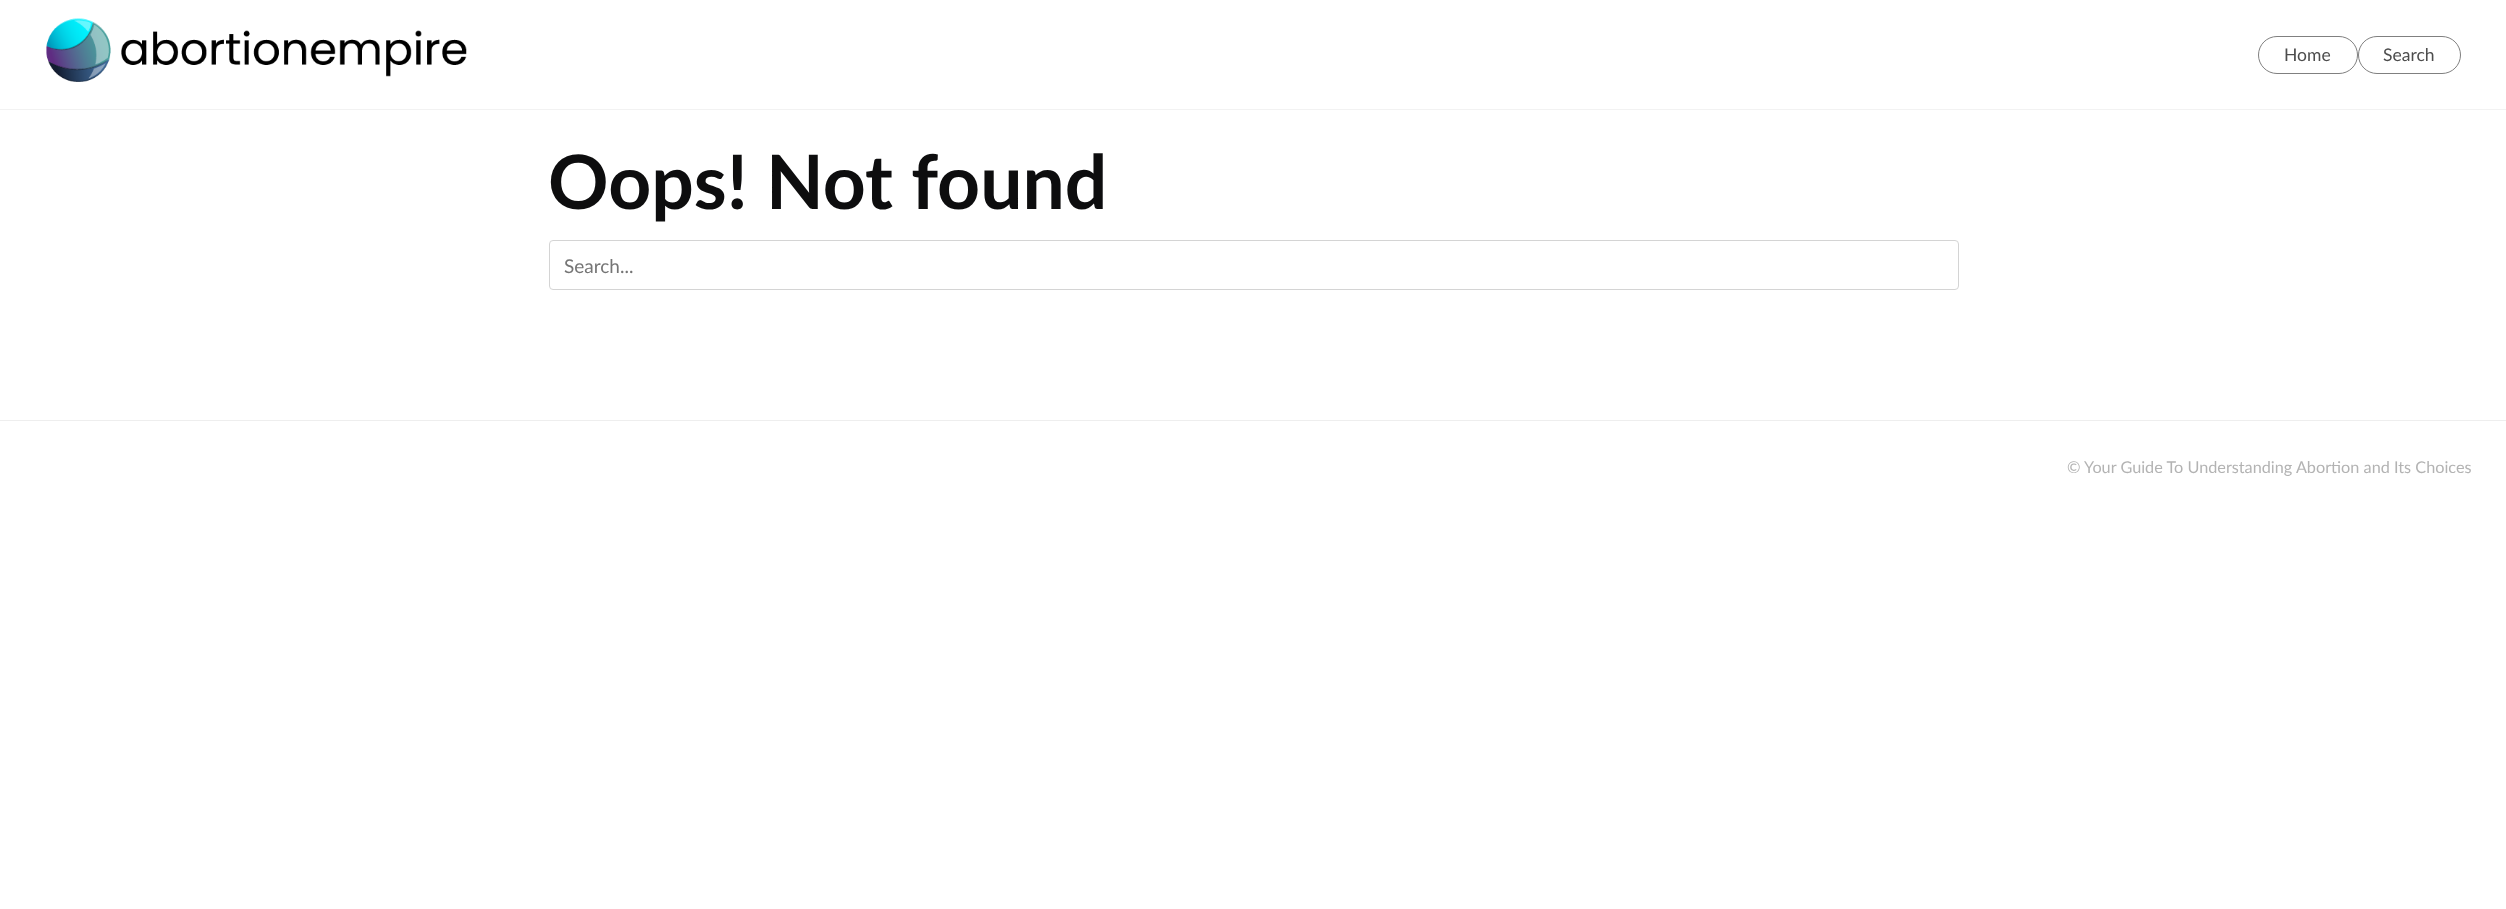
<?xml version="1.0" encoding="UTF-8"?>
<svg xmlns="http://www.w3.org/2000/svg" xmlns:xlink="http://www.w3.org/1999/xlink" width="2506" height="909">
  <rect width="100%" height="100%" fill="#ffffff" />
  <rect y="109" width="2506" height="1" fill="#f2f2f2" />
  <image x="46" y="18" width="421" height="64" xlink:href="image1.png" />
  <rect x="2258.5" y="36.5" width="99" height="37" rx="18.5" fill="none" stroke="#808080" />
  <rect x="2358.5" y="36.5" width="102" height="37" rx="18.5" fill="none" stroke="#808080" />
  <rect x="549.5" y="240.5" width="1409" height="49" rx="3.5" fill="none" stroke="#d4d4d4" />
  <rect y="420" width="2506" height="1" fill="#eeeeee" />
  <text x="2284" y="61" style="font-family: Lato; font-size: 17.5px; fill: #4d4d4d">Home</text>
  <text x="2383" y="61" style="font-family: Lato; font-size: 17.5px; fill: #4d4d4d">Search</text>
  <text x="548" y="209" style="font-family: Lato; font-size: 75px; font-weight: bold; fill: #0d0d0e">Oops! Not found</text>
  <text x="564" y="273" style="font-family: Lato; font-size: 19px; fill: #757575">Search...</text>
  <text x="2067" y="473" style="font-family: Lato; font-size: 16.25px; fill: #b3b3b3">© Your Guide To Understanding Abortion and Its Choices</text>
</svg>
